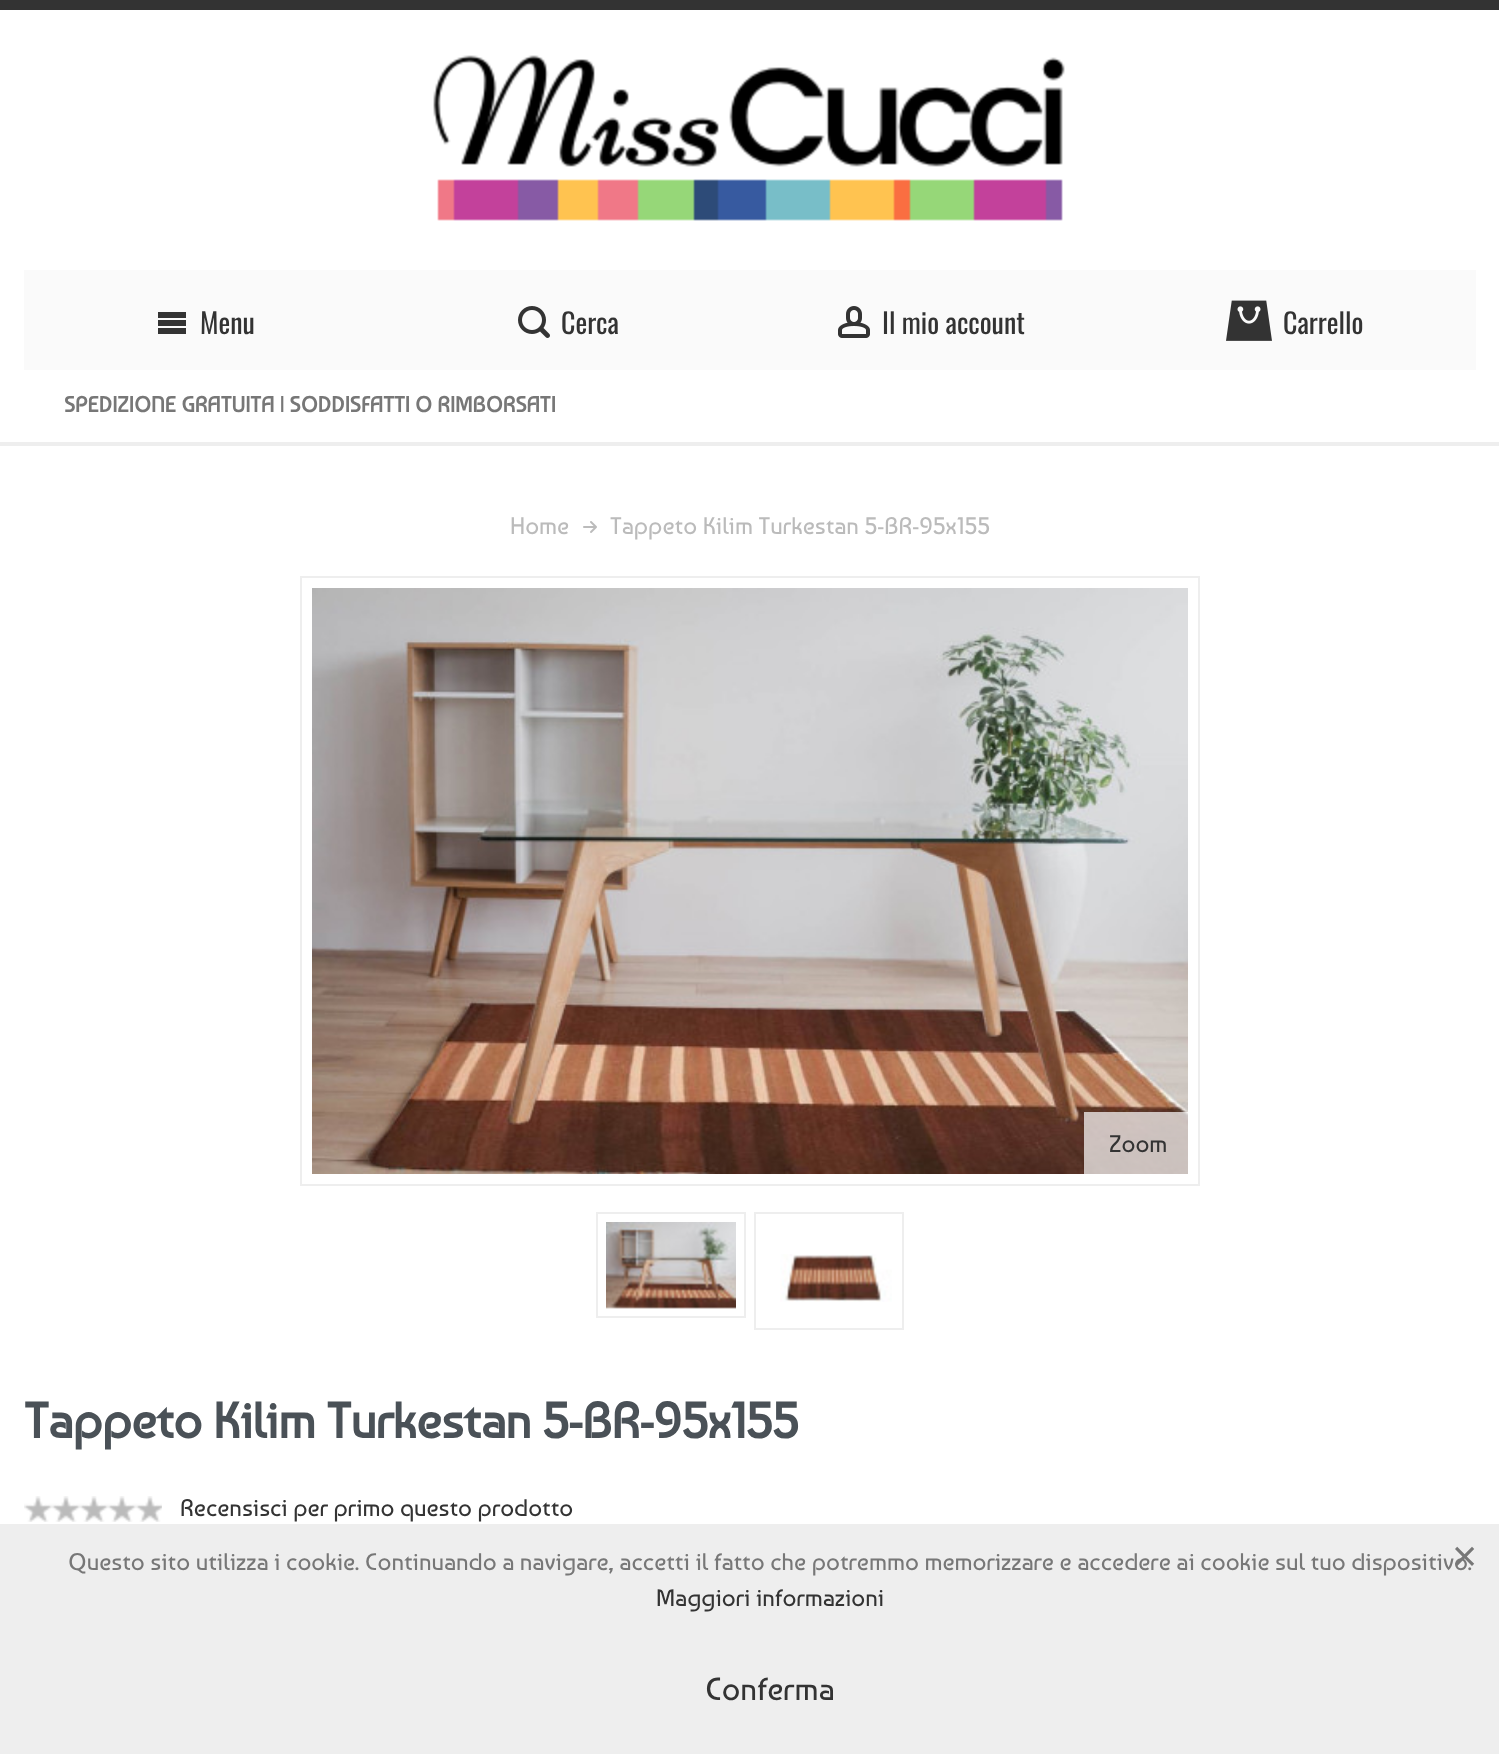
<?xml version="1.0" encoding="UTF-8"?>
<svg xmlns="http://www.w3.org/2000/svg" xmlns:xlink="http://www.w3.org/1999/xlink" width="1499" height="1754">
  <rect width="100%" height="100%" fill="#ffffff" />
  <rect width="1499" height="10" fill="#333333" />
  <image x="433" y="55" width="632" height="166" xlink:href="image1.png" />
  <rect x="24" y="270" width="1452" height="100" fill="#fafafa" />
  <image x="158" y="312" width="28" height="22" xlink:href="image2.png" />
  <image x="518" y="306" width="32" height="32" xlink:href="image3.png" />
  <image x="838" y="306" width="32" height="32" xlink:href="image4.png" />
  <image x="1226" y="300" width="46" height="41" xlink:href="image5.png" />
  <rect y="442" width="1499" height="4" fill="#eeeeee" />
  <image x="583" y="521" width="14" height="12" xlink:href="image6.png" />
  <rect x="301" y="577" width="898" height="608" fill="none" stroke="#eeeeee" stroke-width="2" />
  <image x="312" y="588" width="876" height="586" xlink:href="image7.png" />
  <rect x="1084" y="1112" width="104" height="62" fill="#ffffff" fill-opacity="0.7" />
  <rect x="597" y="1213" width="148" height="104" fill="none" stroke="#eeeeee" stroke-width="2" />
  <image x="606" y="1222" width="130" height="87" xlink:href="image8.png" />
  <rect x="755" y="1213" width="148" height="116" fill="none" stroke="#eeeeee" stroke-width="2" />
  <image x="780" y="1254" width="112" height="48" xlink:href="image9.png" />
  <image x="24" y="1496" width="138" height="26" xlink:href="image10.png" />
  <rect y="1524" width="1499" height="230" fill="#eeeeee" />
  <text x="200" y="334" style="font-family: Oswald; font-size: 28px; fill: #333333">Menu</text>
  <text x="561" y="334" style="font-family: Oswald; font-size: 28px; fill: #333333">Cerca</text>
  <text x="882" y="334" style="font-family: Oswald; font-size: 28px; fill: #333333">Il mio account</text>
  <text x="1283" y="334" style="font-family: Oswald; font-size: 28px; fill: #333333">Carrello</text>
  <text x="64" y="412" style="font-family: Baumans; font-size: 22px; font-weight: bold; fill: #777777">SPEDIZIONE GRATUITA | SODDISFATTI O RIMBORSATI</text>
  <text x="510" y="534" style="font-family: Baumans; font-size: 24px; fill: #bbbbbb">Home</text>
  <text x="610" y="534" style="font-family: Baumans; font-size: 24px; fill: #bbbbbb">Tappeto Kilim Turkestan 5-BR-95x155</text>
  <text x="1109" y="1152" style="font-family: Baumans; font-size: 24px; fill: #333333">Zoom</text>
  <text x="24" y="1438" style="font-family: Baumans; font-size: 50px; font-weight: bold; letter-spacing: -0.5px; fill: #4a5157">Tappeto Kilim Turkestan 5-BR-95x155</text>
  <text x="180" y="1516" style="font-family: Baumans; font-size: 24px; fill: #333333">Recensisci per primo questo prodotto</text>
  <text x="68" y="1570" style="font-family: Baumans; font-size: 24px; fill: #777777">Questo sito utilizza i cookie. Continuando a navigare, accetti il fatto che potremmo memorizzare e accedere ai cookie sul tuo dispositivo.</text>
  <text x="1453" y="1566" style="font-family: Baumans; font-size: 40px; fill: #777777">×</text>
  <text x="656" y="1606" style="font-family: Baumans; font-size: 24px; fill: #333333">Maggiori informazioni</text>
  <text x="705" y="1700" style="font-family: Baumans; font-size: 32px; fill: #333333">Conferma</text>
</svg>
